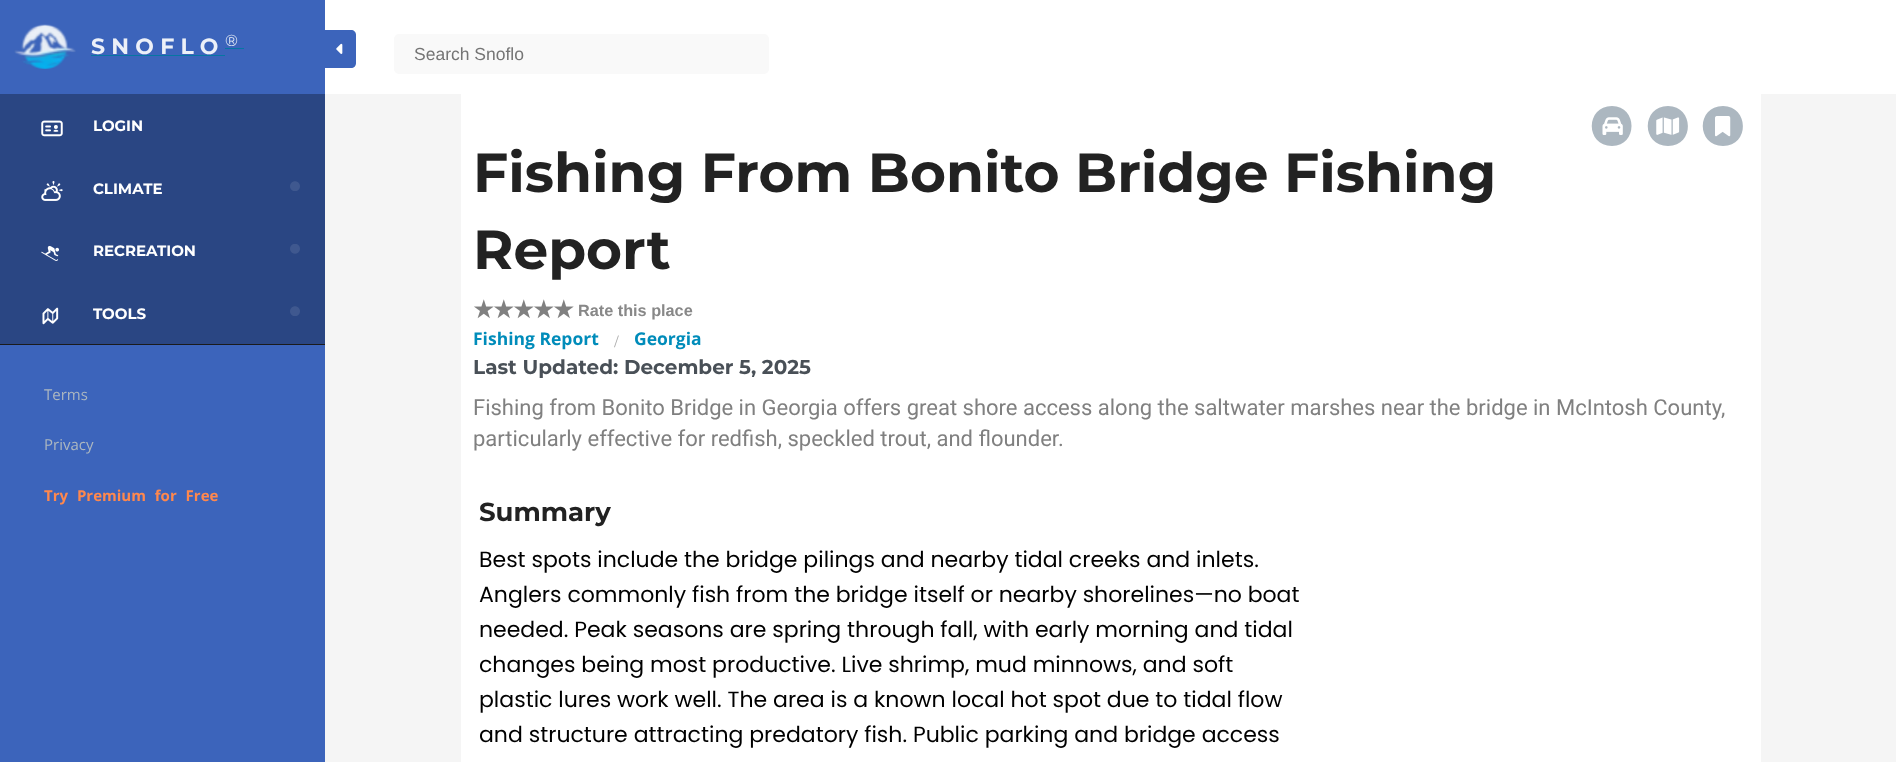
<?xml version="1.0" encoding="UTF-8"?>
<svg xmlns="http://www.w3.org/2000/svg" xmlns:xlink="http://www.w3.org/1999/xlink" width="1896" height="762">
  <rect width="100%" height="100%" fill="#f5f5f5" />
  <rect y="345" width="325" height="417" fill="#3c64bb" />
  <rect width="325" height="94" fill="#3c64bb" />
  <image x="14" y="24" width="62" height="45" xlink:href="image1.png" />
  <rect x="91" y="55" width="134" height="1" fill="#0676a3" />
  <rect x="225" y="48" width="19" height="1" fill="#0676a3" />
  <rect y="344" width="325" height="1" fill="#1b1b1b" />
  <rect y="94" width="325" height="250" fill="#2a4683" />
  <image x="41" y="120" width="22" height="17" xlink:href="image2.png" />
  <image x="41" y="181" width="22" height="20" xlink:href="image3.png" />
  <image x="290" y="181" width="10" height="10" xlink:href="image4.png" />
  <image x="41" y="245" width="18" height="16" xlink:href="image5.png" />
  <image x="290" y="244" width="10" height="10" xlink:href="image6.png" />
  <image x="42" y="307" width="17" height="18" xlink:href="image7.png" />
  <image x="290" y="306" width="10" height="10" xlink:href="image4.png" />
  <rect x="325" width="1571" height="94" fill="#ffffff" />
  <path d="M 325 30 h 26 c 3 0 5 2 5 5 v 28 c 0 3 -2 5 -5 5 h -26 z" fill="#3c64bb" />
  <image x="336" y="43" width="7" height="11" xlink:href="image8.png" />
  <rect x="394" y="34" width="375" height="40" rx="5" fill="#f9f9f9" />
  <rect x="461" y="94" width="1300" height="668" fill="#ffffff" />
  <path d="M 1612 146 c 26 0 26 -40 0 -40 c -27 0 -27 40 0 40 z" fill="#acb7c0" />
  <image x="1602" y="117" width="21" height="18" xlink:href="image9.png" />
  <path d="M 1668 146 c 27 0 26 -40 0 -40 c -27 0 -27 40 0 40 z" fill="#acb7c0" />
  <image x="1656" y="117" width="24" height="18" xlink:href="image10.png" />
  <path d="M 1723 146 c 27 0 26 -40 0 -40 c -27 0 -27 40 0 40 z" fill="#acb7c0" />
  <image x="1715" y="116" width="16" height="21" xlink:href="image11.png" />
  <image x="474" y="299" width="20" height="20" xlink:href="image12.png" />
  <image x="494" y="299" width="20" height="20" xlink:href="image12.png" />
  <image x="514" y="299" width="20" height="20" xlink:href="image12.png" />
  <image x="534" y="299" width="20" height="20" xlink:href="image12.png" />
  <image x="554" y="299" width="20" height="20" xlink:href="image12.png" />
  <text x="91" y="54" style="font-family: Montserrat; font-size: 22px; font-weight: bold; letter-spacing: 6.25px; fill: #ecf0f8">SNOFLO</text>
  <text x="225" y="46" style="font-family: Montserrat; font-size: 16px; letter-spacing: 6.25px; fill: #ecf0f8">®</text>
  <text x="93" y="131" style="font-family: Montserrat; font-size: 15px; font-weight: bold; fill: #ffffff">LOGIN</text>
  <text x="93" y="194" style="font-family: Montserrat; font-size: 15px; font-weight: bold; fill: #ffffff">CLIMATE</text>
  <text x="93" y="256" style="font-family: Montserrat; font-size: 15px; font-weight: bold; fill: #ffffff">RECREATION</text>
  <text x="93" y="319" style="font-family: Montserrat; font-size: 15px; font-weight: bold; fill: #ffffff">TOOLS</text>
  <text x="44" y="400" style="font-family: Open Sans; font-size: 15px; fill: #acb7c0">Terms</text>
  <text x="44" y="450" style="font-family: Open Sans; font-size: 15px; fill: #acb7c0">Privacy</text>
  <text x="44" y="501" word-spacing="5" style="font-family: Open Sans; font-size: 15px; font-weight: bold; fill: #ff884d">Try Premium for Free</text>
  <text x="414" y="60" style="font-family: Liberation Sans; font-size: 17.5px; fill: #757575">Search Snoflo</text>
  <text x="473" y="192" style="font-family: Montserrat; font-size: 55px; font-weight: bold; fill: #222222">Fishing From Bonito Bridge Fishing</text>
  <text x="473" y="269" style="font-family: Montserrat; font-size: 55px; font-weight: bold; fill: #222222">Report</text>
  <text x="578" y="316" style="font-family: Liberation Sans; font-size: 16.25px; font-weight: bold; fill: #888888">Rate this place</text>
  <text x="473" y="345" style="font-family: Open Sans; font-size: 17.5px; font-weight: bold; fill: #008cba">Fishing Report</text>
  <text x="614" y="347" style="font-family: Liberation Serif; font-size: 17.5px; fill: #aaaaaa">/</text>
  <text x="634" y="345" style="font-family: Open Sans; font-size: 17.5px; font-weight: bold; fill: #008cba">Georgia</text>
  <text x="473" y="374" style="font-family: Montserrat; font-size: 20px; font-weight: bold; fill: #495057">Last Updated: December 5, 2025</text>
  <text x="473" y="415" style="font-family: Roboto; font-size: 22px; fill: #808080">Fishing from Bonito Bridge in Georgia offers great shore access along the saltwater marshes near the bridge in McIntosh County,</text>
  <text x="473" y="446" style="font-family: Roboto; font-size: 22px; fill: #808080">particularly effective for redfish, speckled trout, and flounder.</text>
  <text x="479" y="521" style="font-family: Montserrat; font-size: 26px; font-weight: bold; fill: #222222">Summary</text>
  <text x="479" y="567" style="font-family: Poppins; font-size: 22px; fill: #000000">Best spots include the bridge pilings and nearby tidal creeks and inlets.</text>
  <text x="479" y="602" style="font-family: Poppins; font-size: 22px; fill: #000000">Anglers commonly fish from the bridge itself or nearby shorelines—no boat</text>
  <text x="479" y="637" style="font-family: Poppins; font-size: 22px; fill: #000000">needed. Peak seasons are spring through fall, with early morning and tidal</text>
  <text x="479" y="672" style="font-family: Poppins; font-size: 22px; fill: #000000">changes being most productive. Live shrimp, mud minnows, and soft</text>
  <text x="479" y="707" style="font-family: Poppins; font-size: 22px; fill: #000000">plastic lures work well. The area is a known local hot spot due to tidal flow</text>
  <text x="479" y="742" style="font-family: Poppins; font-size: 22px; fill: #000000">and structure attracting predatory fish. Public parking and bridge access</text>
</svg>
